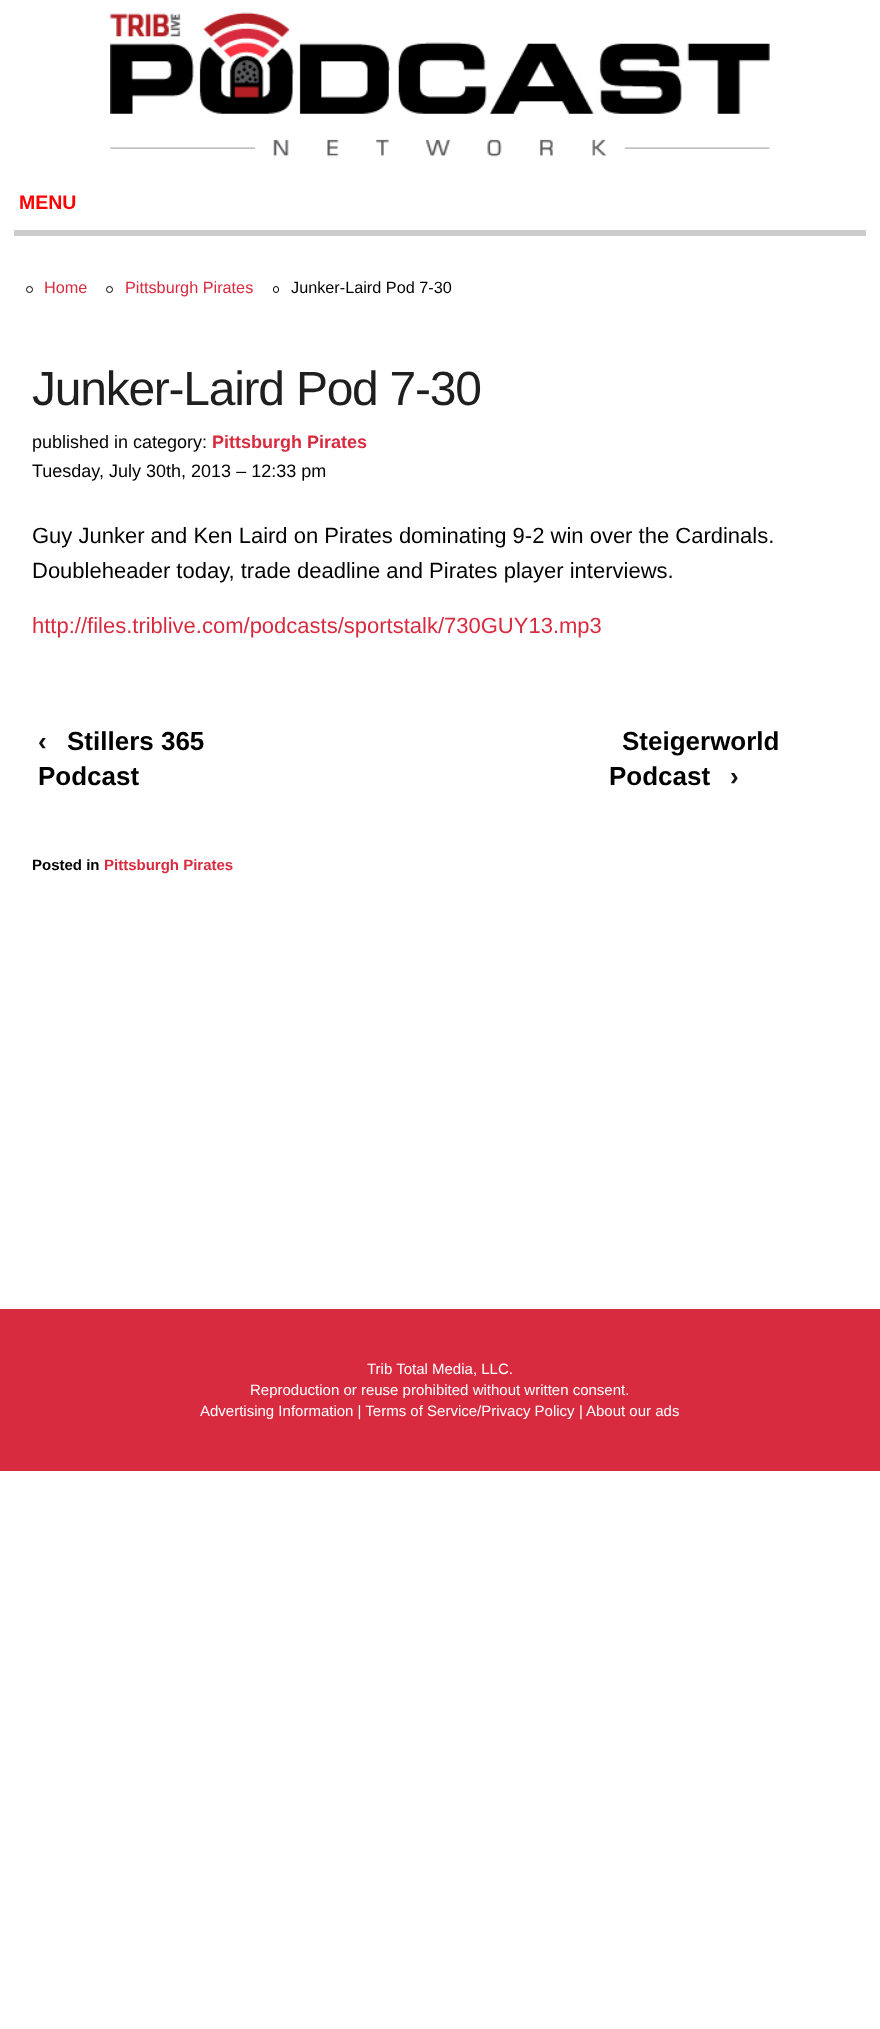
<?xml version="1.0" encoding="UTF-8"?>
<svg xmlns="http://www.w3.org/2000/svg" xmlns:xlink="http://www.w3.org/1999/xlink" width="880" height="2029">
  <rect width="100%" height="100%" fill="#ffffff" />
  <image x="110" y="12" width="660" height="145" xlink:href="image1.png" />
  <rect x="14" y="230" width="852" height="6" fill="#cccccc" />
  <circle cx="29.5" cy="289.5" r="3" fill="none" stroke="#000000" />
  <circle cx="109.5" cy="289.5" r="3" fill="none" stroke="#000000" />
  <rect x="273.5" y="286.5" width="5" height="6" rx="2.5" fill="none" stroke="#000000" />
  <rect y="1309" width="880" height="162" fill="#d82b3f" />
  <text x="19" y="209" style="font-family: Liberation Sans; font-size: 19.5px; font-weight: bold; fill: #ff0000">MENU</text>
  <text x="44" y="293" style="font-family: Liberation Sans; font-size: 16.25px; fill: #d82b3f">Home</text>
  <text x="125" y="293" style="font-family: Liberation Sans; font-size: 16.25px; fill: #d82b3f">Pittsburgh Pirates</text>
  <text x="291" y="293" style="font-family: Liberation Sans; font-size: 16.25px; fill: #000000">Junker-Laird Pod 7-30</text>
  <text x="32" y="405" style="font-family: Liberation Sans; font-size: 48px; letter-spacing: -1.25px; fill: #1f1f1f">Junker-Laird Pod 7-30</text>
  <text x="32" y="448" style="font-family: Liberation Sans; font-size: 18px; fill: #000000">published in category:</text>
  <text x="212" y="448" style="font-family: Liberation Sans; font-size: 18px; font-weight: bold; fill: #d82b3f">Pittsburgh Pirates</text>
  <text x="32" y="477" style="font-family: Liberation Sans; font-size: 18px; fill: #000000">Tuesday, July 30th, 2013 – 12:33 pm</text>
  <text x="32" y="543" style="font-family: Liberation Sans; font-size: 22px; fill: #000000">Guy Junker and Ken Laird on Pirates dominating 9-2 win over the Cardinals.</text>
  <text x="32" y="578" style="font-family: Liberation Sans; font-size: 22px; fill: #000000">Doubleheader today, trade deadline and Pirates player interviews.</text>
  <text x="32" y="633" style="font-family: Liberation Sans; font-size: 22px; fill: #d82b3f">http://files.triblive.com/podcasts/sportstalk/730GUY13.mp3</text>
  <text x="38" y="750" style="font-family: Liberation Sans; font-size: 26px; font-weight: bold; fill: #111111">‹</text>
  <text x="67" y="750" style="font-family: Liberation Sans; font-size: 26px; font-weight: bold; fill: #000000">Stillers 365</text>
  <text x="38" y="785" style="font-family: Liberation Sans; font-size: 26px; font-weight: bold; fill: #000000">Podcast</text>
  <text x="622" y="750" style="font-family: Liberation Sans; font-size: 26px; font-weight: bold; fill: #000000">Steigerworld</text>
  <text x="609" y="785" style="font-family: Liberation Sans; font-size: 26px; font-weight: bold; fill: #000000">Podcast</text>
  <text x="730" y="785" style="font-family: Liberation Sans; font-size: 26px; font-weight: bold; fill: #111111">›</text>
  <text x="32" y="870" style="font-family: Liberation Sans; font-size: 15px; font-weight: bold; fill: #000000">Posted in</text>
  <text x="104" y="870" style="font-family: Liberation Sans; font-size: 15px; font-weight: bold; fill: #d82b3f">Pittsburgh Pirates</text>
  <text x="367" y="1374" style="font-family: Liberation Sans; font-size: 15px; fill: #ffffff">Trib Total Media, LLC.</text>
  <text x="250" y="1395" style="font-family: Liberation Sans; font-size: 15px; fill: #ffffff">Reproduction or reuse prohibited without written consent.</text>
  <text x="200" y="1416" style="font-family: Liberation Sans; font-size: 15px; fill: #ffffff">Advertising Information | Terms of Service/Privacy Policy</text>
  <text x="579" y="1416" style="font-family: Liberation Sans; font-size: 15px; fill: #ffffff">|</text>
  <text x="586" y="1416" style="font-family: Liberation Sans; font-size: 15px; fill: #ffffff">About our ads</text>
</svg>
